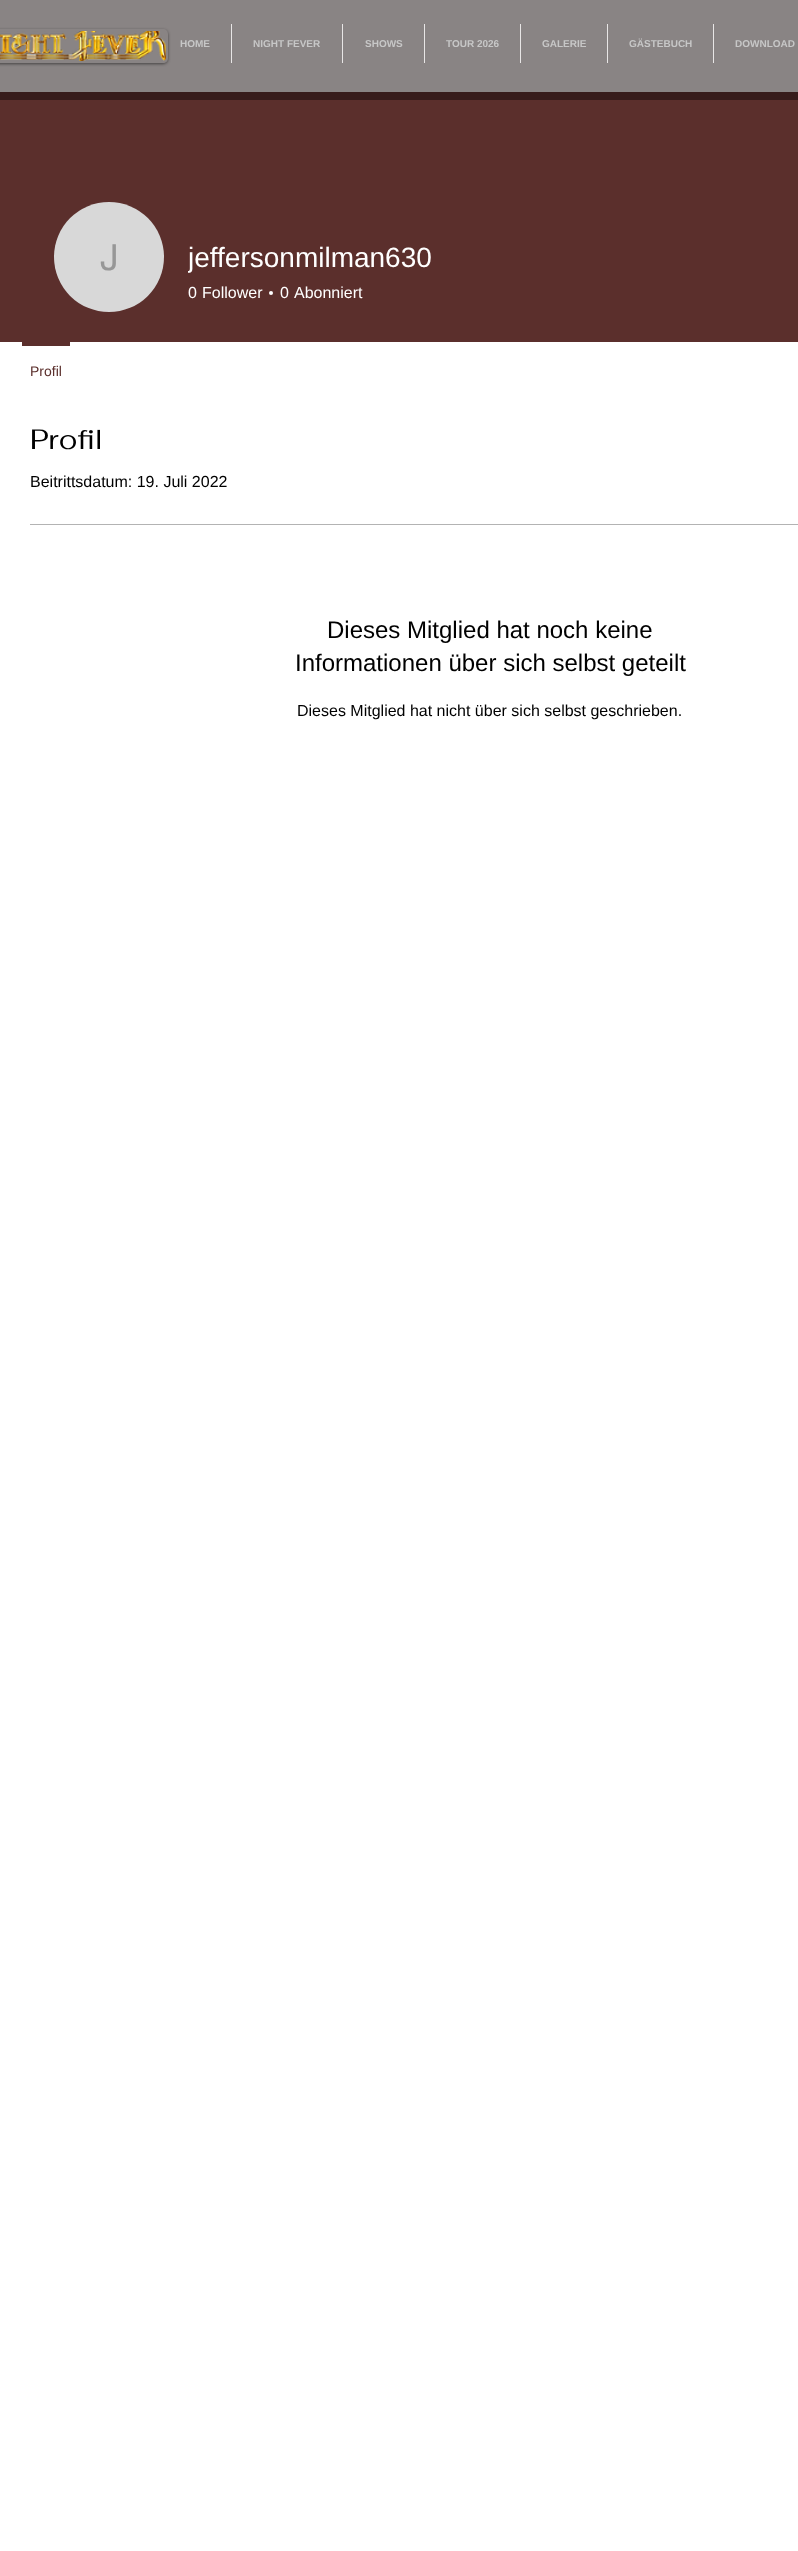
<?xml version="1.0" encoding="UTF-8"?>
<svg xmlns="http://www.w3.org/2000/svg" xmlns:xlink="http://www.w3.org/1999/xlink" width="798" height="2551">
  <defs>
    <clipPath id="clip1"><path d="M 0 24 h 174 v 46 h -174 z m -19 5 h 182 c 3 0 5 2 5 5 v 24 c 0 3 -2 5 -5 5 h -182 c -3 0 -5 -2 -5 -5 v -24 c 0 -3 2 -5 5 -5 z" clip-rule="evenodd" /></clipPath>
    <clipPath id="clip2"><rect x="188" y="238" width="244" height="40" /></clipPath>
  </defs>
  <rect width="100%" height="100%" fill="#ffffff" />
  <rect width="798" height="92" fill="#898484" />
  <g clip-path="url(#clip1)">
    <rect x="-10" y="30" width="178" height="34" rx="5" fill="#000000" fill-opacity="0.5" filter="blur(1.5px)" />
  </g>
  <image x="0" y="31" width="166" height="30" xlink:href="image1.png" />
  <rect x="231" y="24" width="1" height="39" fill="#e8e6e6" />
  <rect x="342" y="24" width="1" height="39" fill="#e8e6e6" />
  <rect x="424" y="24" width="1" height="39" fill="#e8e6e6" />
  <rect x="520" y="24" width="1" height="39" fill="#e8e6e6" />
  <rect x="607" y="24" width="1" height="39" fill="#e8e6e6" />
  <rect x="713" y="24" width="1" height="39" fill="#e8e6e6" />
  <rect y="100" width="798" height="242" fill="#5b2f2c" />
  <rect y="92" width="798" height="8" fill="#371c1b" />
  <circle cx="109" cy="257" r="55" fill="#d8d8d8" />
  <circle cx="271" cy="293" r="2" fill="#ffffff" />
  <rect x="22" y="342" width="48" height="4" fill="#5b2f2c" />
  <rect x="30" y="524" width="768" height="1" fill="#b3b3b3" />
  <text x="180" y="47" style="font-family: Liberation Sans; font-size: 10px; font-weight: bold; fill: #c7c7c7">HOME</text>
  <text x="253" y="47" style="font-family: Liberation Sans; font-size: 10px; font-weight: bold; fill: #c7c7c7">NIGHT FEVER</text>
  <text x="365" y="47" style="font-family: Liberation Sans; font-size: 10px; font-weight: bold; fill: #c7c7c7">SHOWS</text>
  <text x="446" y="47" style="font-family: Liberation Sans; font-size: 10px; font-weight: bold; fill: #c7c7c7">TOUR 2026</text>
  <text x="542" y="47" style="font-family: Liberation Sans; font-size: 10px; font-weight: bold; fill: #c7c7c7">GALERIE</text>
  <text x="629" y="47" style="font-family: Liberation Sans; font-size: 10px; font-weight: bold; fill: #c7c7c7">GÄSTEBUCH</text>
  <text x="735" y="47" style="font-family: Liberation Sans; font-size: 10px; font-weight: bold; fill: #c7c7c7">DOWNLOAD</text>
  <text x="100" y="270" style="font-family: Helvetica Neue; font-size: 36px; fill: #979797">J</text>
  <g clip-path="url(#clip2)">
    <text x="188" y="267" style="font-family: Liberation Sans; font-size: 28px; fill: #ffffff">jeffersonmilman630</text>
  </g>
  <text x="188" y="298" style="font-family: Liberation Sans; font-size: 16px; fill: #ffffff">0</text>
  <text x="202" y="298" style="font-family: Liberation Sans; font-size: 16px; fill: #ffffff">Follower</text>
  <text x="280" y="298" style="font-family: Liberation Sans; font-size: 16px; fill: #ffffff">0</text>
  <text x="294" y="298" style="font-family: Liberation Sans; font-size: 16px; fill: #ffffff">Abonniert</text>
  <text x="30" y="376" style="font-family: Liberation Sans; font-size: 14px; fill: #5b2f2c">Profil</text>
  <text x="30" y="449" style="font-family: Fahkwang; font-size: 28px; fill: #000000">Profil</text>
  <text x="30" y="487" style="font-family: Liberation Sans; font-size: 16px; fill: #000000">Beitrittsdatum: 19. Juli 2022</text>
  <text x="327" y="638" style="font-family: Liberation Sans; font-size: 24px; fill: #000000">Dieses Mitglied hat noch keine</text>
  <text x="295" y="671" style="font-family: Liberation Sans; font-size: 24px; fill: #000000">Informationen über sich selbst geteilt</text>
  <text x="297" y="716" style="font-family: Liberation Sans; font-size: 16px; fill: #000000">Dieses Mitglied hat nicht über sich selbst geschrieben.</text>
</svg>
